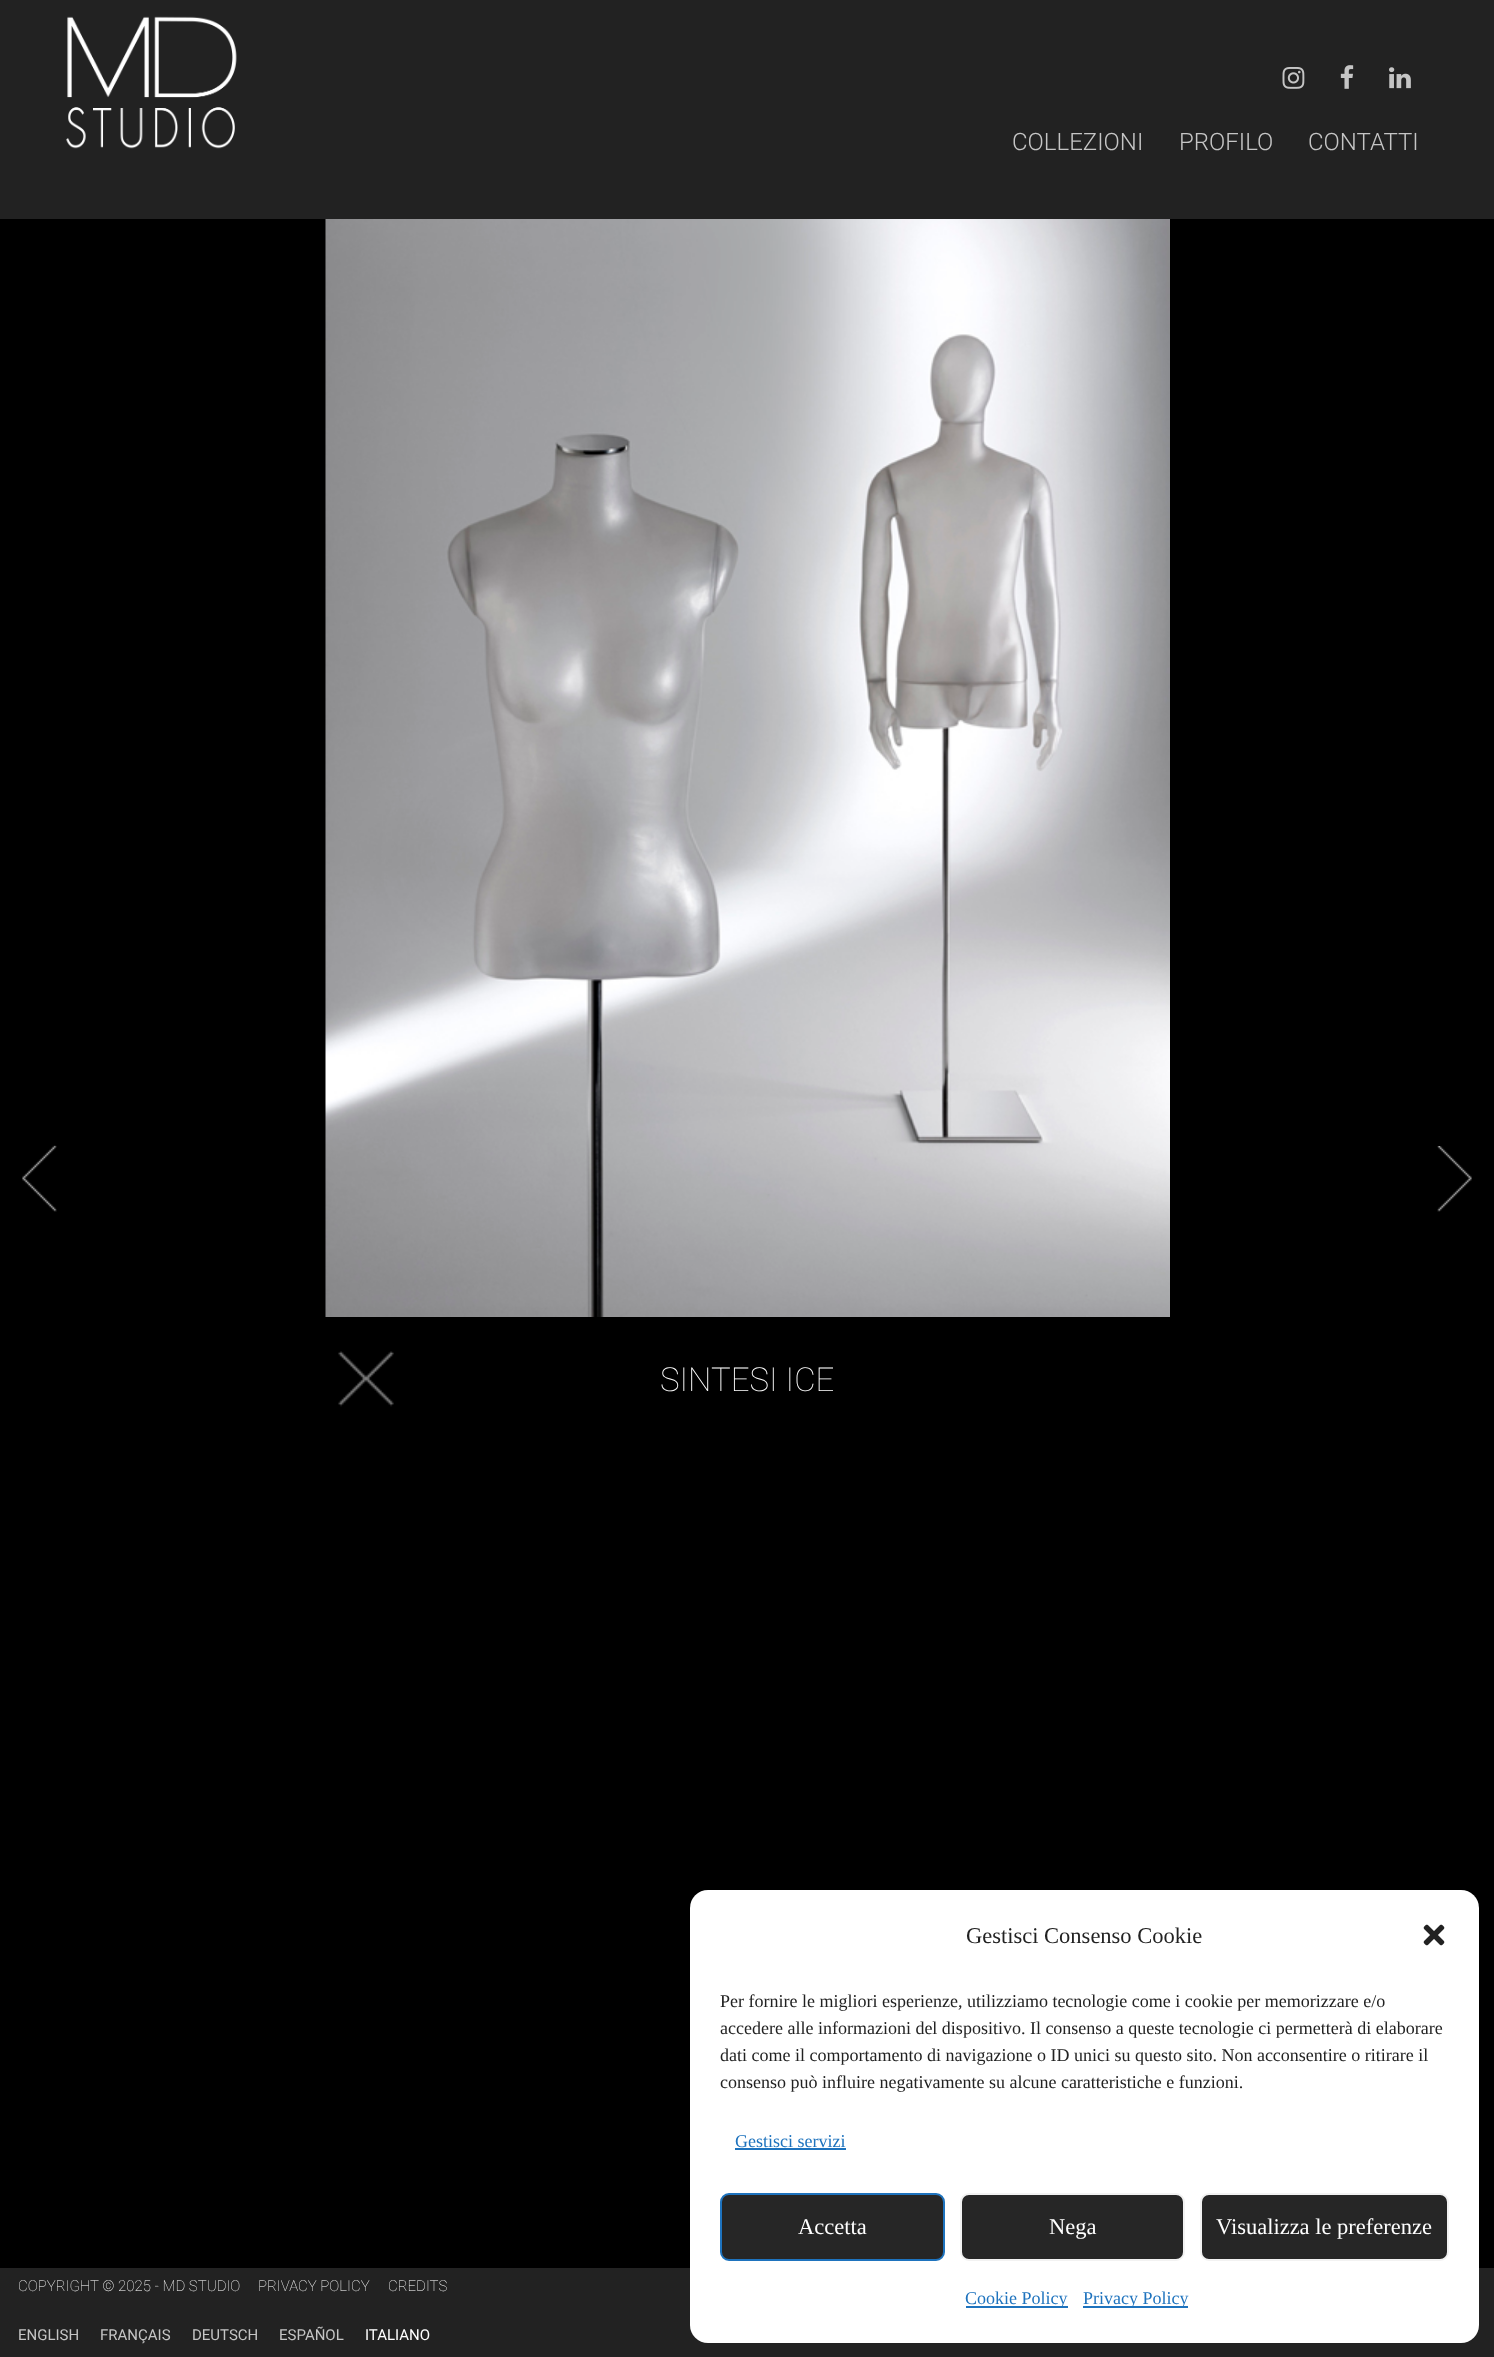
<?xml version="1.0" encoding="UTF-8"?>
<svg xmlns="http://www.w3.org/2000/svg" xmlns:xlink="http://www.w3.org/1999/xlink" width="1494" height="2357">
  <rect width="100%" height="100%" fill="#000000" />
  <rect width="1494" height="219" fill="#222222" />
  <image x="66" y="16" width="171" height="133" xlink:href="image1.png" />
  <image x="1282" y="67" width="23" height="22" xlink:href="image2.png" />
  <image x="1340" y="65" width="14" height="24" xlink:href="image3.png" />
  <image x="1389" y="67" width="22" height="22" xlink:href="image4.png" />
  <image x="22" y="1145" width="35" height="67" xlink:href="image5.png" />
  <image x="325" y="219" width="845" height="1098" xlink:href="image6.png" />
  <image x="1437" y="1146" width="35" height="66" xlink:href="image7.png" />
  <image x="338" y="1351" width="56" height="56" xlink:href="image8.png" />
  <rect y="2268" width="1494" height="89" fill="#222222" />
  <rect x="690" y="1890" width="789" height="453" rx="18" fill="#ffffff" />
  <image x="1423" y="1924" width="22" height="22" xlink:href="image9.png" />
  <rect x="735" y="2148" width="111" height="2" fill="#1e73be" />
  <rect x="721" y="2194" width="223" height="66" rx="8" fill="#262626" stroke="#1e73be" stroke-width="2" />
  <rect x="961" y="2194" width="223" height="66" rx="8" fill="#262626" stroke="#f2f2f2" stroke-width="2" />
  <rect x="1201" y="2194" width="247" height="66" rx="8" fill="#262626" stroke="#f2f2f2" stroke-width="2" />
  <rect x="966" y="2306" width="102" height="2" fill="#1e73be" />
  <rect x="1083" y="2306" width="105" height="2" fill="#1e73be" />
  <text x="1012" y="150" style="font-family: Roboto; font-size: 24px; font-weight: 300; fill: #c5c5c5">COLLEZIONI</text>
  <text x="1179" y="150" style="font-family: Roboto; font-size: 24px; font-weight: 300; fill: #c5c5c5">PROFILO</text>
  <text x="1308" y="150" style="font-family: Roboto; font-size: 24px; font-weight: 300; fill: #c5c5c5">CONTATTI</text>
  <text x="660" y="1391" style="font-family: Roboto; font-size: 33px; font-weight: 100; fill: #ffffff">SINTESI ICE</text>
  <text x="18" y="2291" style="font-family: Roboto; font-size: 15px; font-weight: 100; fill: #ffffff">COPYRIGHT © 2025 - MD STUDIO</text>
  <text x="258" y="2291" style="font-family: Roboto; font-size: 15px; font-weight: 100; fill: #ffffff">PRIVACY POLICY</text>
  <text x="388" y="2291" style="font-family: Roboto; font-size: 15px; font-weight: 100; fill: #ffffff">CREDITS</text>
  <text x="18" y="2340" style="font-family: Roboto; font-size: 15px; fill: #c5c5c5">ENGLISH</text>
  <text x="100" y="2340" style="font-family: Roboto; font-size: 15px; fill: #c5c5c5">FRANÇAIS</text>
  <text x="192" y="2340" style="font-family: Roboto; font-size: 15px; fill: #c5c5c5">DEUTSCH</text>
  <text x="279" y="2340" style="font-family: Roboto; font-size: 15px; fill: #c5c5c5">ESPAÑOL</text>
  <text x="365" y="2340" style="font-family: Roboto; font-size: 15px; fill: #ffffff">ITALIANO</text>
  <text x="966" y="1943" style="font-family: Liberation Serif; font-size: 22.5px; fill: #222222">Gestisci Consenso Cookie</text>
  <text x="720" y="2007" style="font-family: Liberation Serif; font-size: 18px; fill: #222222">Per fornire le migliori esperienze, utilizziamo tecnologie come i cookie per memorizzare e/o</text>
  <text x="720" y="2034" style="font-family: Liberation Serif; font-size: 18px; fill: #222222">accedere alle informazioni del dispositivo. Il consenso a queste tecnologie ci permetterà di elaborare</text>
  <text x="720" y="2061" style="font-family: Liberation Serif; font-size: 18px; fill: #222222">dati come il comportamento di navigazione o ID unici su questo sito. Non acconsentire o ritirare il</text>
  <text x="720" y="2088" style="font-family: Liberation Serif; font-size: 18px; fill: #222222">consenso può influire negativamente su alcune caratteristiche e funzioni.</text>
  <text x="735" y="2147" style="font-family: Liberation Serif; font-size: 18px; fill: #1e73be">Gestisci servizi</text>
  <text x="798" y="2234" style="font-family: Liberation Serif; font-size: 22.5px; fill: #ffffff">Accetta</text>
  <text x="1049" y="2234" style="font-family: Liberation Serif; font-size: 22.5px; fill: #ffffff">Nega</text>
  <text x="1216" y="2234" style="font-family: Liberation Serif; font-size: 22.5px; fill: #ffffff">Visualizza le preferenze</text>
  <text x="965" y="2304" style="font-family: Liberation Serif; font-size: 18px; fill: #1e73be">Cookie Policy</text>
  <text x="1083" y="2304" style="font-family: Liberation Serif; font-size: 18px; fill: #1e73be">Privacy Policy</text>
</svg>
